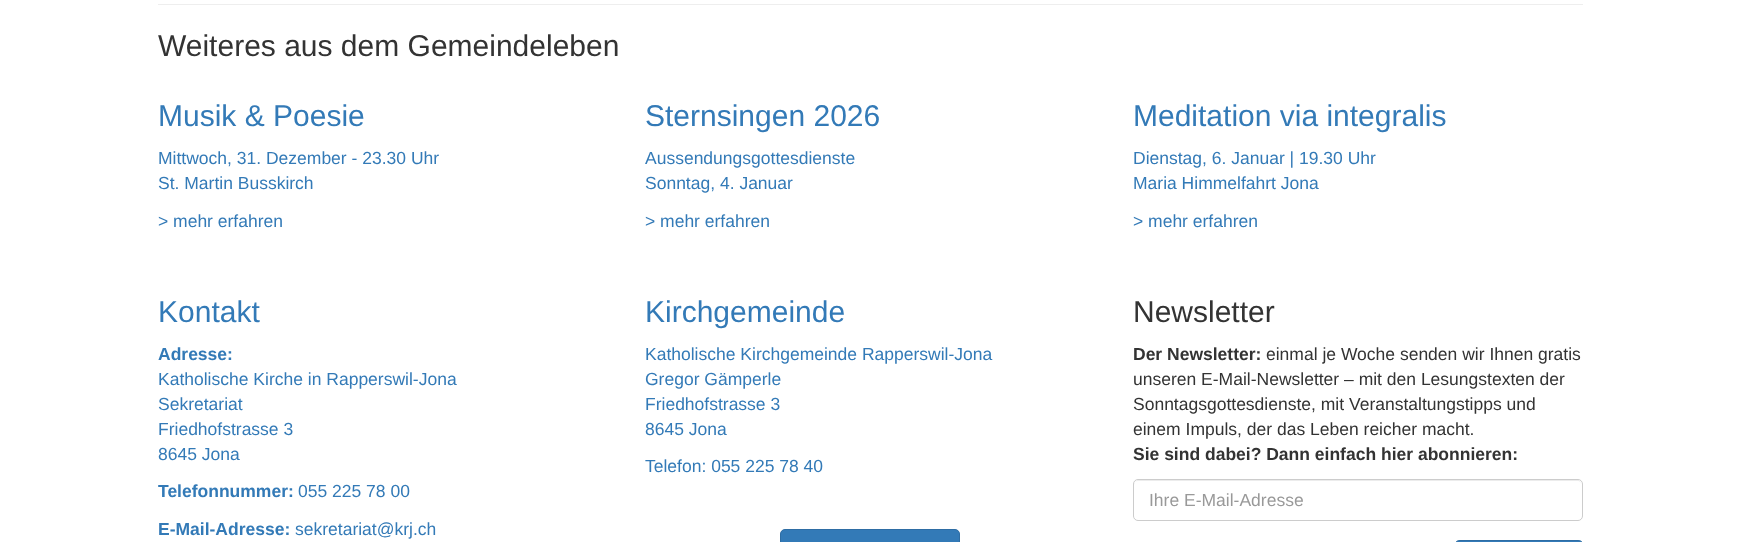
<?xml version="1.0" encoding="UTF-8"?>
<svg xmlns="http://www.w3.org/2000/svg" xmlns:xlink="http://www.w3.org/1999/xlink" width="1739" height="542">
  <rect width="100%" height="100%" fill="#ffffff" />
  <rect x="158" y="4" width="1425" height="1" fill="#eeeeee" />
  <rect x="780.5" y="529.5" width="179" height="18" rx="4.5" fill="#337ab7" stroke="#2e6da4" />
  <path d="M 1138 481 h 440 c 2 0 3 2 3 4 c 0 -3 -1 -5 -4 -5 h -439 l -2 1 l -1 1 l -1 3 c 0 -2 1 -4 4 -4 z" fill="#ececec" />
  <rect x="1133.5" y="479.5" width="449" height="41" rx="4.5" fill="none" stroke="#cccccc" />
  <rect x="1455.5" y="540.5" width="127" height="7" rx="4.5" fill="#337ab7" stroke="#2e6da4" />
  <text x="158" y="56" style="font-family: Liberation Sans; font-size: 30px; fill: #333333">Weiteres aus dem Gemeindeleben</text>
  <text x="158" y="126" style="font-family: Liberation Sans; font-size: 30px; fill: #337ab7">Musik &amp; Poesie</text>
  <text x="158" y="164" style="font-family: Liberation Sans; font-size: 17.5px; fill: #337ab7">Mittwoch, 31. Dezember - 23.30 Uhr</text>
  <text x="158" y="189" style="font-family: Liberation Sans; font-size: 17.5px; fill: #337ab7">St. Martin Busskirch</text>
  <text x="158" y="227" style="font-family: Liberation Sans; font-size: 17.5px; fill: #337ab7">&gt; mehr erfahren</text>
  <text x="645" y="126" style="font-family: Liberation Sans; font-size: 30px; fill: #337ab7">Sternsingen 2026</text>
  <text x="645" y="164" style="font-family: Liberation Sans; font-size: 17.5px; fill: #337ab7">Aussendungsgottesdienste</text>
  <text x="645" y="189" style="font-family: Liberation Sans; font-size: 17.5px; fill: #337ab7">Sonntag, 4. Januar</text>
  <text x="645" y="227" style="font-family: Liberation Sans; font-size: 17.5px; fill: #337ab7">&gt; mehr erfahren</text>
  <text x="1133" y="126" style="font-family: Liberation Sans; font-size: 30px; fill: #337ab7">Meditation via integralis</text>
  <text x="1133" y="164" style="font-family: Liberation Sans; font-size: 17.5px; fill: #337ab7">Dienstag, 6. Januar | 19.30 Uhr</text>
  <text x="1133" y="189" style="font-family: Liberation Sans; font-size: 17.5px; fill: #337ab7">Maria Himmelfahrt Jona</text>
  <text x="1133" y="227" style="font-family: Liberation Sans; font-size: 17.5px; fill: #337ab7">&gt; mehr erfahren</text>
  <text x="158" y="322" style="font-family: Liberation Sans; font-size: 30px; fill: #337ab7">Kontakt</text>
  <text x="158" y="360" style="font-family: Liberation Sans; font-size: 17.5px; font-weight: bold; fill: #337ab7">Adresse:</text>
  <text x="158" y="385" style="font-family: Liberation Sans; font-size: 17.5px; fill: #337ab7">Katholische Kirche in Rapperswil-Jona</text>
  <text x="158" y="410" style="font-family: Liberation Sans; font-size: 17.5px; fill: #337ab7">Sekretariat</text>
  <text x="158" y="435" style="font-family: Liberation Sans; font-size: 17.5px; fill: #337ab7">Friedhofstrasse 3</text>
  <text x="158" y="460" style="font-family: Liberation Sans; font-size: 17.5px; fill: #337ab7">8645 Jona</text>
  <text x="158" y="497" style="font-family: Liberation Sans; font-size: 17.5px; font-weight: bold; fill: #337ab7">Telefonnummer:</text>
  <text x="298" y="497" style="font-family: Liberation Sans; font-size: 17.5px; fill: #337ab7">055 225 78 00</text>
  <text x="158" y="535" style="font-family: Liberation Sans; font-size: 17.5px; font-weight: bold; fill: #337ab7">E-Mail-Adresse:</text>
  <text x="295" y="535" style="font-family: Liberation Sans; font-size: 17.5px; fill: #337ab7">sekretariat@krj.ch</text>
  <text x="645" y="322" style="font-family: Liberation Sans; font-size: 30px; fill: #337ab7">Kirchgemeinde</text>
  <text x="645" y="360" style="font-family: Liberation Sans; font-size: 17.5px; fill: #337ab7">Katholische Kirchgemeinde Rapperswil-Jona</text>
  <text x="645" y="385" style="font-family: Liberation Sans; font-size: 17.5px; fill: #337ab7">Gregor Gämperle</text>
  <text x="645" y="410" style="font-family: Liberation Sans; font-size: 17.5px; fill: #337ab7">Friedhofstrasse 3</text>
  <text x="645" y="435" style="font-family: Liberation Sans; font-size: 17.5px; fill: #337ab7">8645 Jona</text>
  <text x="645" y="472" style="font-family: Liberation Sans; font-size: 17.5px; fill: #337ab7">Telefon: 055 225 78 40</text>
  <text x="1133" y="322" style="font-family: Liberation Sans; font-size: 30px; fill: #333333">Newsletter</text>
  <text x="1133" y="360" style="font-family: Liberation Sans; font-size: 17.5px; font-weight: bold; fill: #333333">Der Newsletter:</text>
  <text x="1266" y="360" style="font-family: Liberation Sans; font-size: 17.5px; fill: #333333">einmal je Woche senden wir Ihnen gratis</text>
  <text x="1133" y="385" style="font-family: Liberation Sans; font-size: 17.5px; fill: #333333">unseren E-Mail-Newsletter – mit den Lesungstexten der</text>
  <text x="1133" y="410" style="font-family: Liberation Sans; font-size: 17.5px; fill: #333333">Sonntagsgottesdienste, mit Veranstaltungstipps und</text>
  <text x="1133" y="435" style="font-family: Liberation Sans; font-size: 17.5px; fill: #333333">einem Impuls, der das Leben reicher macht.</text>
  <text x="1133" y="460" style="font-family: Liberation Sans; font-size: 17.5px; font-weight: bold; fill: #333333">Sie sind dabei? Dann einfach hier abonnieren:</text>
  <text x="1149" y="506" style="font-family: Liberation Sans; font-size: 17.5px; fill: #999999">Ihre E-Mail-Adresse</text>
</svg>
